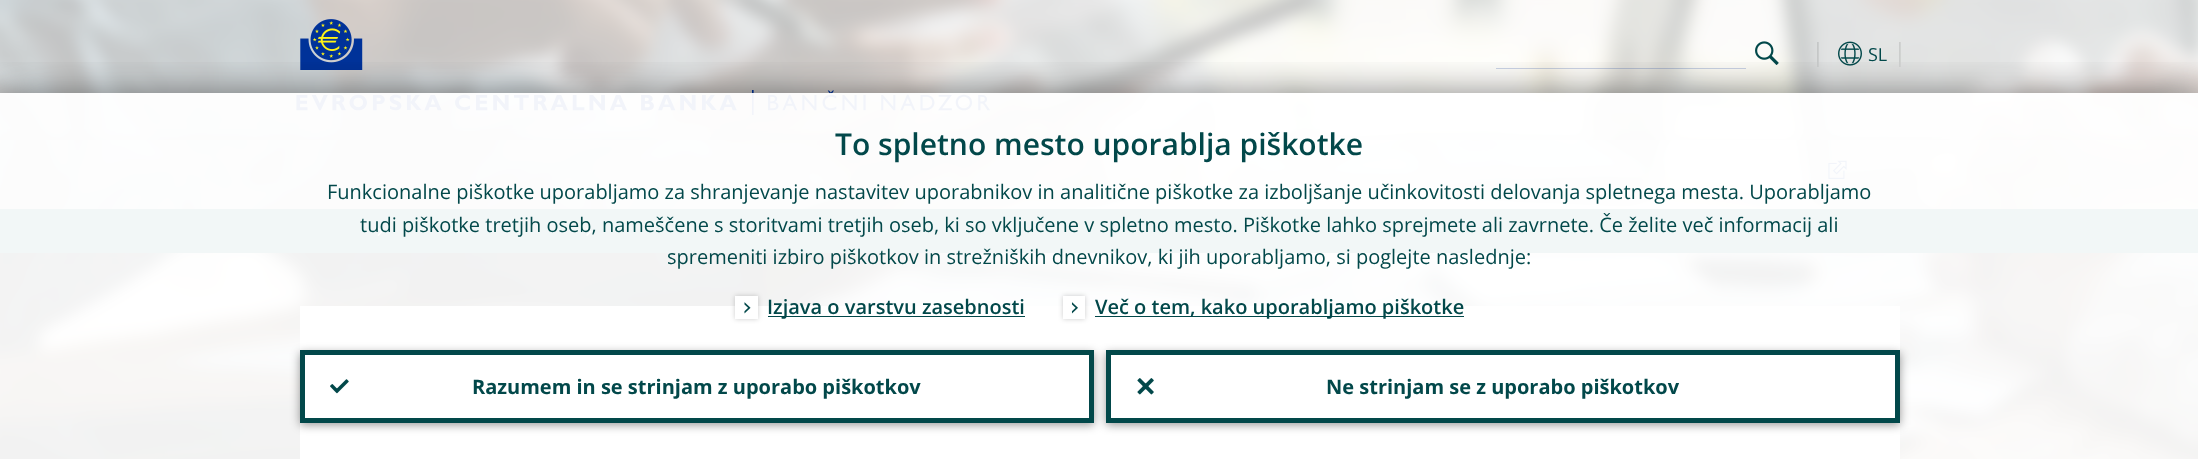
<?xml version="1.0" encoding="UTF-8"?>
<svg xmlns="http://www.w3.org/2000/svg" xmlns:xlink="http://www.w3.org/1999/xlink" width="2198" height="459">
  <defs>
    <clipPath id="clip1"><path d="M 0 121 h 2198 v 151 h -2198 z m 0 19 h 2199 v 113 h -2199 z" clip-rule="evenodd" /></clipPath>
    <clipPath id="clip2"><rect x="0" y="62" width="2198" height="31" /></clipPath>
  </defs>
  <rect width="100%" height="100%" fill="#ffffff" />
  <image x="0" y="0" width="2198" height="459" xlink:href="image1.png" />
  <rect x="300" y="306" width="1600" height="153" fill="#ffffff" />
  <rect x="1364" y="423" width="75" height="21" fill="#eeeeee" />
  <rect x="1469" y="423" width="1" height="21" fill="#eeeeee" />
  <rect x="1500" y="423" width="75" height="21" fill="#eeeeee" />
  <rect x="1588" y="423" width="75" height="21" fill="#eeeeee" />
  <rect x="1675" y="423" width="75" height="21" fill="#eeeeee" />
  <rect x="1763" y="423" width="75" height="21" fill="#eeeeee" />
  <rect width="2198" height="209" fill="#ffffff" fill-opacity="0.75" />
  <image x="300" y="19" width="63" height="51" xlink:href="image2.png" />
  <image x="1755" y="41" width="24" height="24" xlink:href="image3.png" />
  <rect x="1496" y="68" width="250" height="1" fill="#003299" fill-opacity="0.2" />
  <image x="1838" y="41" width="24" height="25" xlink:href="image4.png" />
  <image x="296" y="90" width="694" height="25" xlink:href="image5.png" />
  <g clip-path="url(#clip1)">
    <rect y="140" width="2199" height="113" fill="#000000" fill-opacity="0.1" filter="blur(6px)" />
  </g>
  <image x="1828" y="160" width="19" height="19" xlink:href="image6.png" />
  <rect y="209" width="2198" height="44" fill="#115e5f" />
  <image x="377" y="227" width="6" height="9" xlink:href="image7.png" />
  <image x="586" y="227" width="6" height="9" xlink:href="image8.png" />
  <image x="757" y="227" width="6" height="9" xlink:href="image7.png" />
  <g clip-path="url(#clip2)">
    <rect y="95" width="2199" height="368" fill="#000000" fill-opacity="0.5" filter="blur(19px)" />
  </g>
  <rect y="93" width="2198" height="366" fill="#ffffff" fill-opacity="0.95" />
  <rect x="735" y="296" width="23" height="23" fill="#000000" fill-opacity="0.2" filter="blur(2.5px)" />
  <rect x="735" y="296" width="23" height="23" fill="#ffffff" />
  <image x="744" y="302" width="7" height="12" xlink:href="image9.png" />
  <rect x="768" y="316" width="257" height="1" fill="#02484a" />
  <rect x="1063" y="296" width="22" height="23" fill="#000000" fill-opacity="0.2" filter="blur(2.5px)" />
  <rect x="1063" y="296" width="22" height="23" fill="#ffffff" />
  <image x="1071" y="302" width="7" height="12" xlink:href="image10.png" />
  <rect x="1095" y="316" width="369" height="1" fill="#02484a" />
  <rect x="300" y="353" width="794" height="72" fill="#000000" fill-opacity="0.4" filter="blur(5px)" />
  <rect x="302.5" y="352.5" width="789" height="68" fill="#ffffff" stroke="#02484a" stroke-width="5" />
  <image x="330" y="379" width="19" height="15" xlink:href="image11.png" />
  <rect x="1106" y="353" width="794" height="72" fill="#000000" fill-opacity="0.4" filter="blur(5px)" />
  <rect x="1108.5" y="352.5" width="789" height="68" fill="#ffffff" stroke="#02484a" stroke-width="5" />
  <image x="1137" y="378" width="17" height="17" xlink:href="image12.png" />
  <text x="1811" y="61" style="font-family: Open Sans; font-size: 25px; fill: #c5c7c7">|</text>
  <text x="1868" y="61" style="font-family: Open Sans; font-size: 18px; fill: #02484a">SL</text>
  <text x="1893" y="61" style="font-family: Open Sans; font-size: 25px; fill: #cbcdcc">|</text>
  <text x="835" y="155" style="font-family: Open Sans; font-size: 30px; font-weight: 600; fill: #02484a">To spletno mesto uporablja piškotke</text>
  <text x="327" y="199" style="font-family: Open Sans; font-size: 20px; fill: #02484a">Funkcionalne piškotke uporabljamo za shranjevanje nastavitev uporabnikov in analitične piškotke za izboljšanje učinkovitosti delovanja spletnega mesta. Uporabljamo</text>
  <text x="360" y="232" style="font-family: Open Sans; font-size: 20px; fill: #02484a">tudi piškotke tretjih oseb, nameščene s storitvami tretjih oseb, ki so vključene v spletno mesto. Piškotke lahko sprejmete ali zavrnete. Če želite več informacij ali</text>
  <text x="667" y="264" style="font-family: Open Sans; font-size: 20px; fill: #02484a">spremeniti izbiro piškotkov in strežniških dnevnikov, ki jih uporabljamo, si poglejte naslednje:</text>
  <text x="767" y="314" style="font-family: Open Sans; font-size: 20px; font-weight: 600; fill: #02484a">Izjava o varstvu zasebnosti</text>
  <text x="1095" y="314" style="font-family: Open Sans; font-size: 20px; font-weight: 600; fill: #02484a">Več o tem, kako uporabljamo piškotke</text>
  <text x="472" y="394" style="font-family: Open Sans; font-size: 20px; font-weight: bold; fill: #02484a">Razumem in se strinjam z uporabo piškotkov</text>
  <text x="1326" y="394" style="font-family: Open Sans; font-size: 20px; font-weight: bold; fill: #02484a">Ne strinjam se z uporabo piškotkov</text>
</svg>
